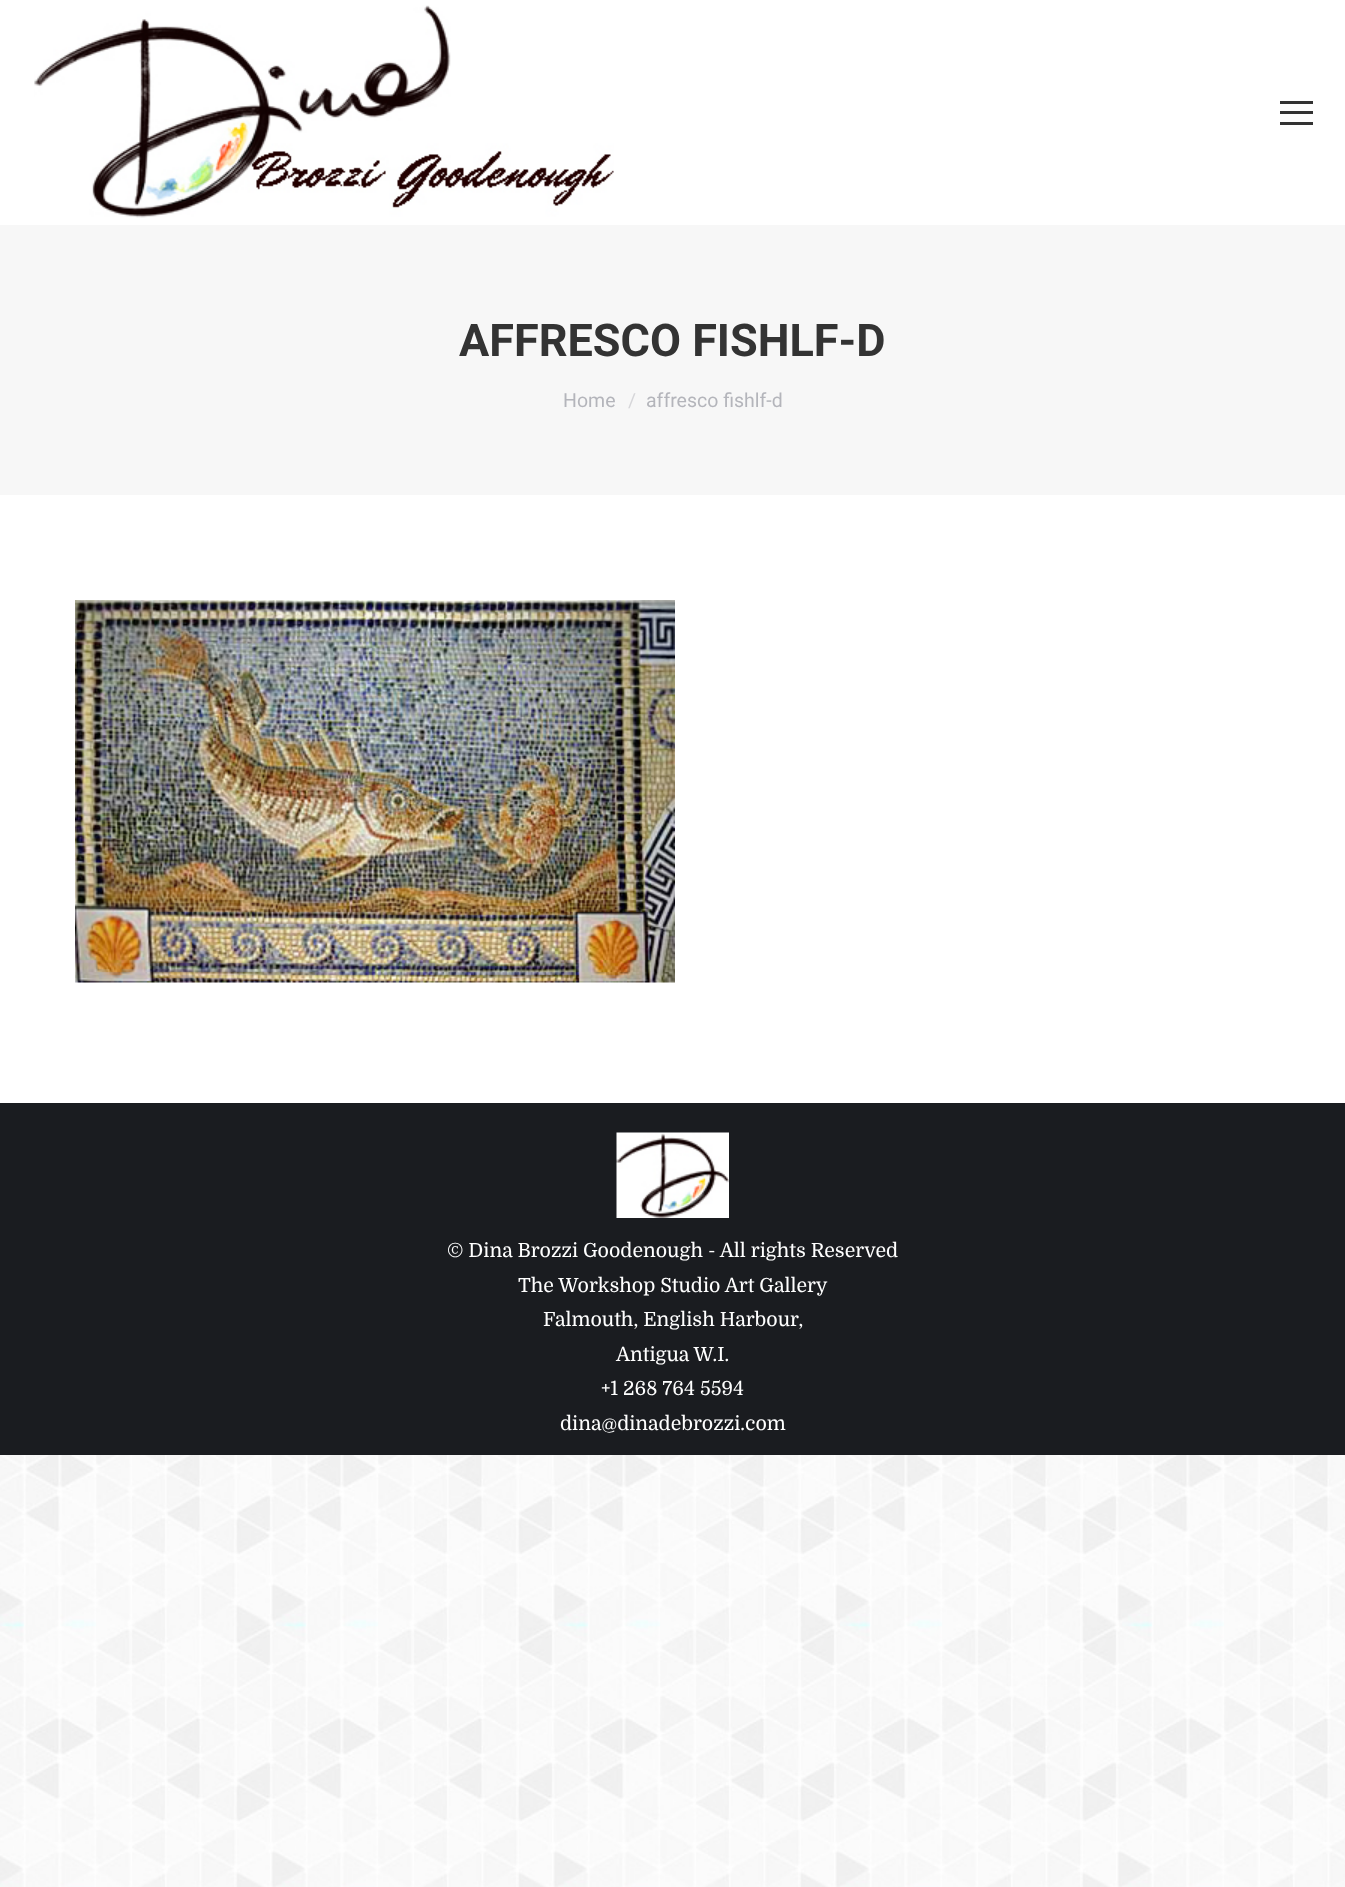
<?xml version="1.0" encoding="UTF-8"?>
<svg xmlns="http://www.w3.org/2000/svg" xmlns:xlink="http://www.w3.org/1999/xlink" width="1345" height="1887">
  <rect width="100%" height="100%" fill="#ffffff" />
  <image x="0" y="1455" width="1345" height="432" xlink:href="image1.png" />
  <image x="34" y="5" width="580" height="213" xlink:href="image2.png" />
  <rect x="1280" y="101" width="33" height="3" fill="#333333" />
  <rect x="1280" y="111" width="33" height="3" fill="#333333" />
  <rect x="1280" y="122" width="33" height="3" fill="#333333" />
  <rect y="225" width="1345" height="270" fill="#f7f7f7" />
  <image x="75" y="600" width="600" height="383" xlink:href="image3.png" />
  <rect y="1103" width="1345" height="352" fill="#1a1c20" />
  <image x="616" y="1132" width="113" height="86" xlink:href="image4.png" />
  <text x="459" y="356" style="font-family: Roboto; font-size: 45px; font-weight: bold; fill: #333333">AFFRESCO FISHLF-D</text>
  <text x="563" y="407" style="font-family: Roboto; font-size: 19.5px; fill: #b4b5bb">Home</text>
  <text x="628" y="407" style="font-family: Roboto; font-size: 19.5px; fill: #d6d6d9">/</text>
  <text x="646" y="407" style="font-family: Roboto; font-size: 19.5px; fill: #b4b5bb">affresco fishlf-d</text>
  <text x="447" y="1257" style="font-family: Domine; font-size: 19.5px; fill: #ffffff">© Dina Brozzi Goodenough - All rights Reserved</text>
  <text x="518" y="1292" style="font-family: Domine; font-size: 19.5px; fill: #ffffff">The Workshop Studio Art Gallery</text>
  <text x="543" y="1326" style="font-family: Domine; font-size: 19.5px; fill: #ffffff">Falmouth, English Harbour,</text>
  <text x="616" y="1361" style="font-family: Domine; font-size: 19.5px; fill: #ffffff">Antigua W.I.</text>
  <text x="601" y="1395" style="font-family: Domine; font-size: 19.5px; fill: #ffffff">+1 268 764 5594</text>
  <text x="560" y="1430" style="font-family: Domine; font-size: 19.5px; fill: #ffffff">dina@dinadebrozzi.com</text>
</svg>
